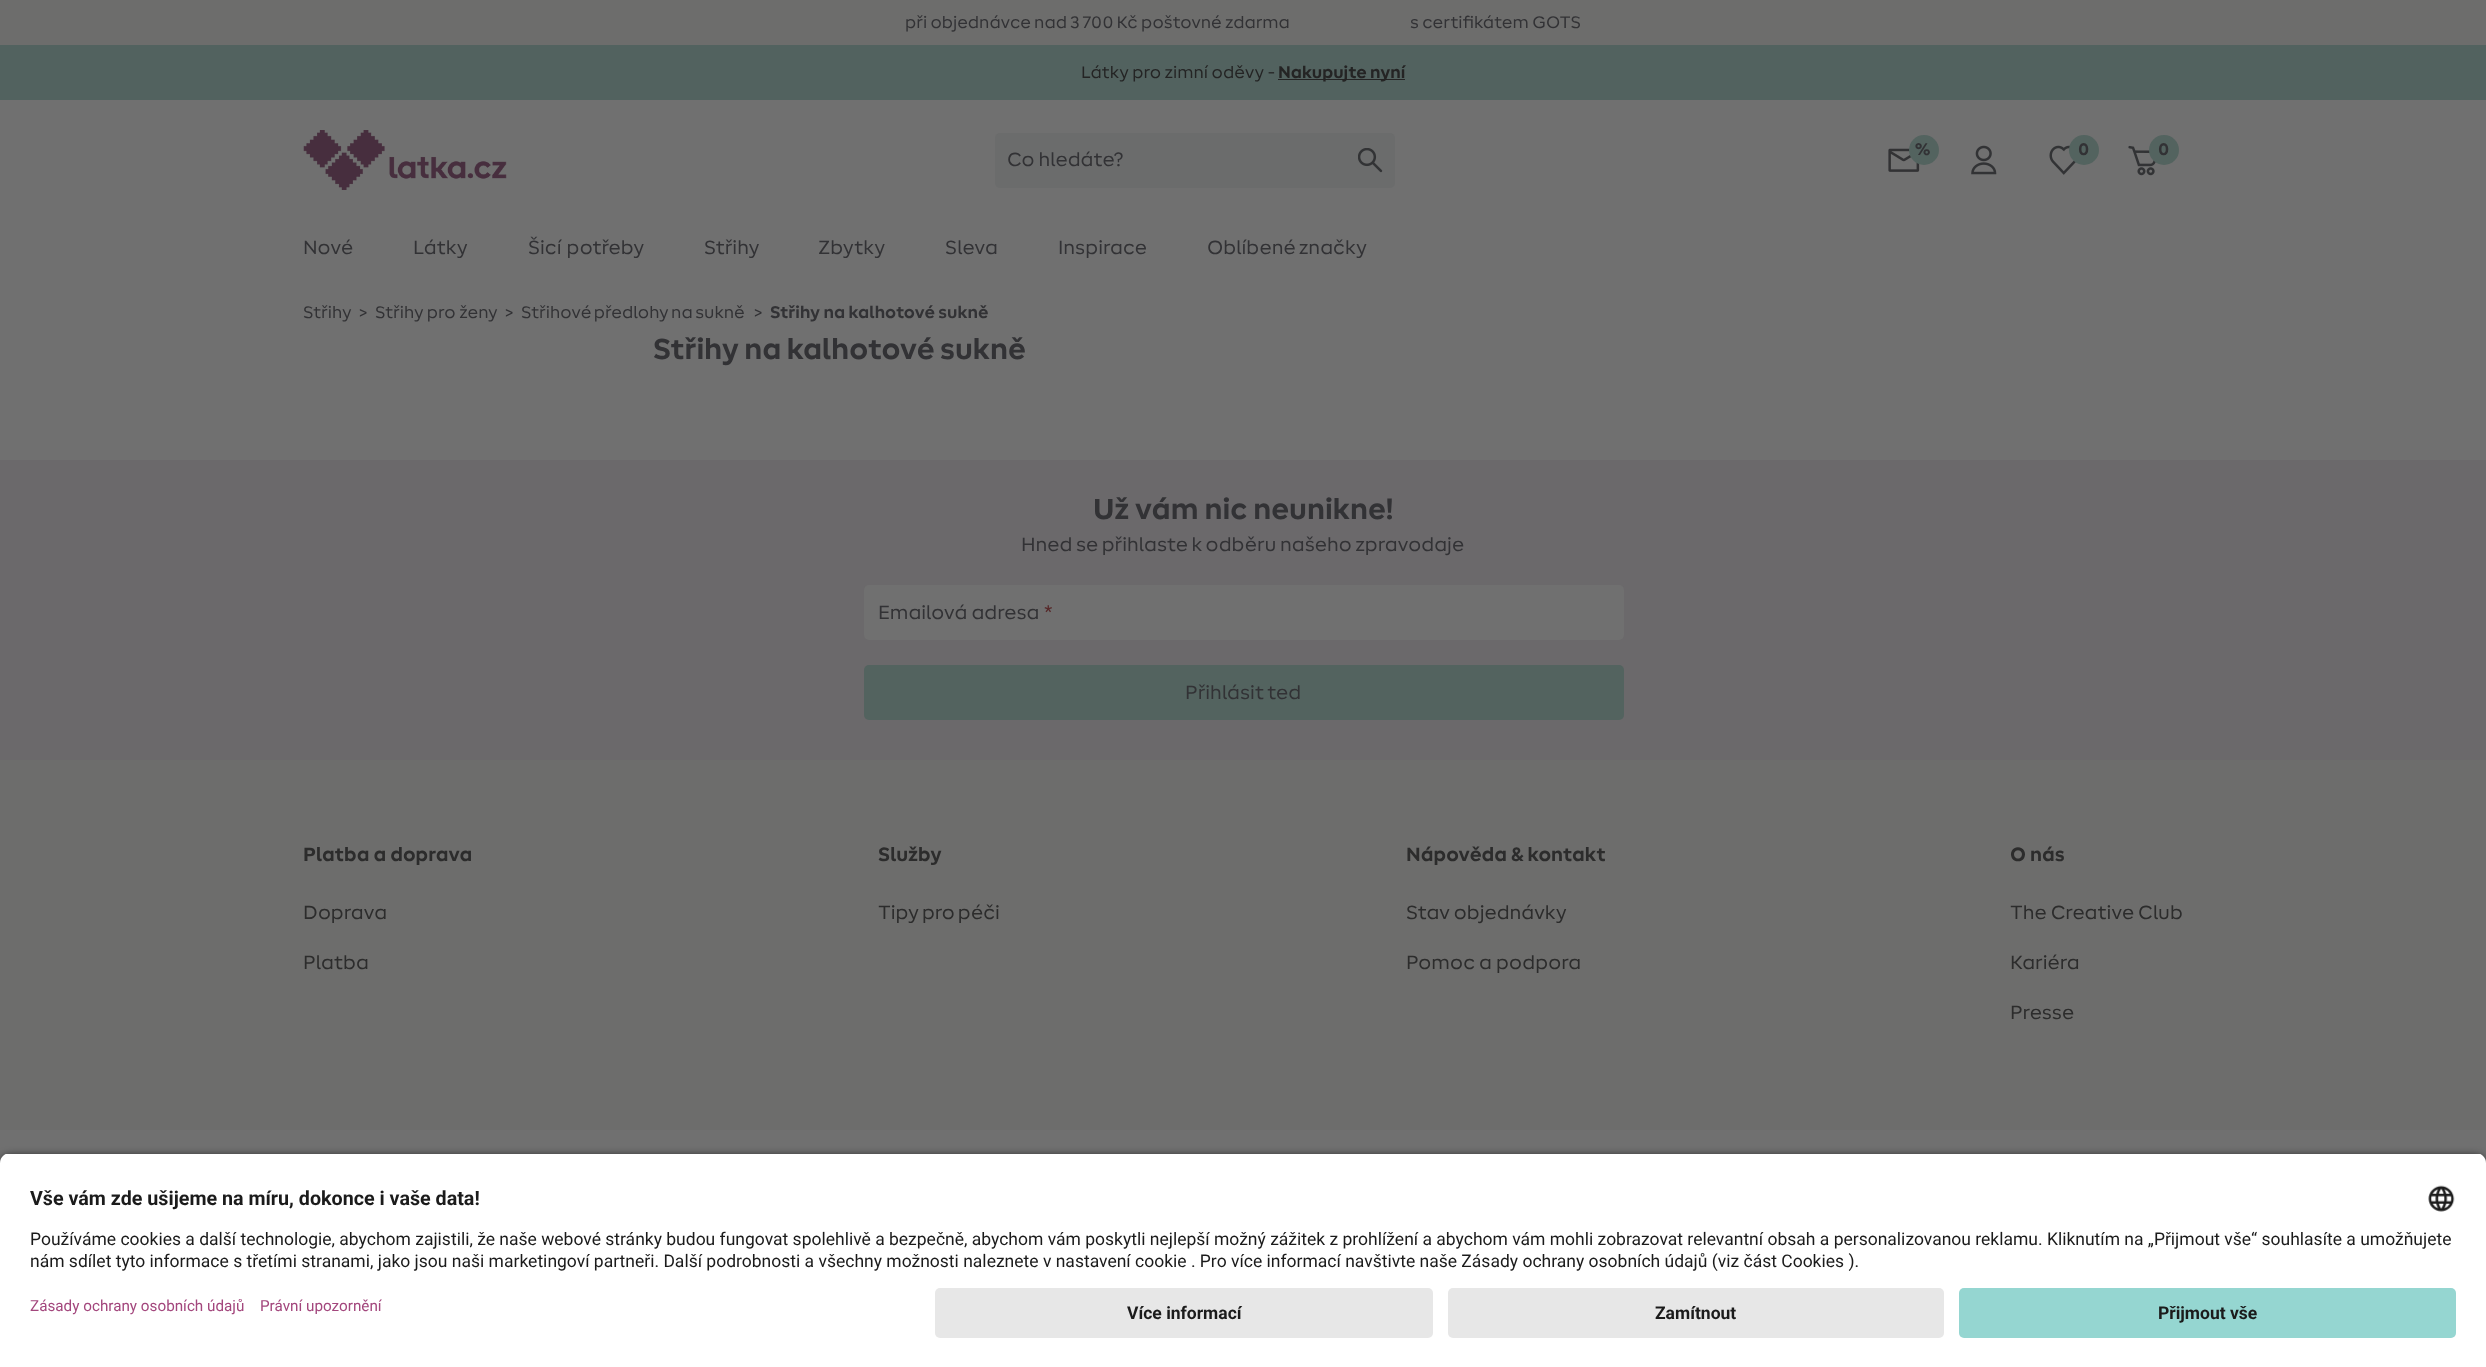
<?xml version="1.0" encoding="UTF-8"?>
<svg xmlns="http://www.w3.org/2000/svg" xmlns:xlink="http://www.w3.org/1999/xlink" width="2486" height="1367">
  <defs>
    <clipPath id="clip1"><path d="M 10 1153 h 2466 c 5.5 0 10 4.5 10 10 v 115 h -2486 v -115 c 0 -5.5 4.5 -10 10 -10 z" /></clipPath>
    <clipPath id="clip2"><rect x="1185" y="678" width="116" height="30" /></clipPath>
  </defs>
  <rect width="100%" height="100%" fill="#707070" />
  <rect width="2486" height="45" fill="#6d6d6c" />
  <rect y="45" width="2486" height="55" fill="#52625f" />
  <rect x="1278" y="79" width="127" height="1" fill="#242424" />
  <image x="303" y="130" width="204" height="60" xlink:href="image1.png" />
  <image x="1888" y="148" width="32" height="24" xlink:href="image2.png" />
  <circle cx="1924" cy="150" r="15" fill="#53635f" />
  <image x="1971" y="145" width="26" height="30" xlink:href="image3.png" />
  <image x="2049" y="145" width="27" height="30" xlink:href="image4.png" />
  <circle cx="2084" cy="150" r="15" fill="#53635f" />
  <image x="2128" y="145" width="28" height="31" xlink:href="image5.png" />
  <circle cx="2164" cy="150" r="15" fill="#53635f" />
  <rect x="995" y="133" width="400" height="55" rx="5" fill="#6b6c6c" />
  <image x="1358" y="148" width="25" height="25" xlink:href="image6.png" />
  <rect y="460" width="2486" height="300" fill="#6b696b" />
  <rect x="864" y="585" width="760" height="55" rx="5" fill="#707070" />
  <rect x="864" y="665" width="760" height="55" rx="5" fill="#53635f" />
  <rect y="760" width="2486" height="370" fill="#6d6d6c" />
  <rect y="1156" width="2486" height="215" rx="10" fill="#000000" fill-opacity="0.8" filter="blur(4.5px)" />
  <g clip-path="url(#clip1)">
    <rect y="1154" width="2486" height="124" fill="#ffffff" />
  </g>
  <image x="2428" y="1185" width="27" height="27" xlink:href="image7.png" />
  <rect y="1278" width="2486" height="89" fill="#ffffff" />
  <rect x="935" y="1288" width="498" height="50" rx="5" fill="#e7e7e7" />
  <rect x="1448" y="1288" width="496" height="50" rx="5" fill="#e7e7e7" />
  <rect x="1959" y="1288" width="497" height="50" rx="5" fill="#95d6d1" />
  <text x="905" y="28" word-spacing="-0.25" style="font-family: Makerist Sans; font-size: 17.5px; fill: #323235">při objednávce nad 3 700 Kč poštovné zdarma</text>
  <text x="1410" y="28" style="font-family: Makerist Sans; font-size: 17.5px; fill: #323235">s certifikátem GOTS</text>
  <text x="1081" y="78" style="font-family: Makerist Sans; font-size: 17.5px; fill: #242424">Látky pro zimní oděvy -</text>
  <text x="1278" y="78" style="font-family: Makerist Sans; font-size: 17.5px; font-weight: bold; fill: #242424">Nakupujte nyní</text>
  <text x="1915" y="155" style="font-family: Makerist Sans; font-size: 17.5px; font-weight: bold; fill: #323235">%</text>
  <text x="2078" y="155" style="font-family: Makerist Sans; font-size: 17.5px; font-weight: bold; fill: #323235">0</text>
  <text x="2158" y="155" style="font-family: Makerist Sans; font-size: 17.5px; font-weight: bold; fill: #323235">0</text>
  <text x="1007" y="166" style="font-family: Makerist Sans; font-size: 20px; fill: #323235">Co hledáte?</text>
  <text x="303" y="254" style="font-family: Makerist Sans; font-size: 20px; fill: #323235">Nové</text>
  <text x="413" y="254" style="font-family: Makerist Sans; font-size: 20px; fill: #323235">Látky</text>
  <text x="528" y="254" word-spacing="1" style="font-family: Makerist Sans; font-size: 20px; fill: #323235">Šicí potřeby</text>
  <text x="704" y="254" style="font-family: Makerist Sans; font-size: 20px; fill: #323235">Střihy</text>
  <text x="818" y="254" style="font-family: Makerist Sans; font-size: 20px; fill: #323235">Zbytky</text>
  <text x="945" y="254" style="font-family: Makerist Sans; font-size: 20px; fill: #323235">Sleva</text>
  <text x="1058" y="254" style="font-family: Makerist Sans; font-size: 20px; fill: #323235">Inspirace</text>
  <text x="1207" y="254" word-spacing="-1" style="font-family: Makerist Sans; font-size: 20px; fill: #323235">Oblíbené značky</text>
  <text x="303" y="318" style="font-family: Makerist Sans; font-size: 17.5px; fill: #323235">Střihy</text>
  <text x="358" y="318" style="font-family: Makerist Sans; font-size: 17.5px; fill: #323235">&gt;</text>
  <text x="375" y="318" style="font-family: Makerist Sans; font-size: 17.5px; fill: #323235">Střihy pro ženy</text>
  <text x="504" y="318" style="font-family: Makerist Sans; font-size: 17.5px; fill: #323235">&gt;</text>
  <text x="521" y="318" word-spacing="-1" style="font-family: Makerist Sans; font-size: 17.5px; fill: #323235">Střihové předlohy na sukně</text>
  <text x="753" y="318" style="font-family: Makerist Sans; font-size: 17.5px; fill: #323235">&gt;</text>
  <text x="770" y="318" style="font-family: Makerist Sans; font-size: 17.5px; font-weight: bold; fill: #323235">Střihy na kalhotové sukně</text>
  <text x="653" y="359" word-spacing="-0.5" style="font-family: Makerist Sans; font-size: 30px; font-weight: bold; fill: #323235">Střihy na kalhotové sukně</text>
  <text x="1093" y="519" style="font-family: Makerist Sans; font-size: 30px; font-weight: bold; fill: #323235">Už vám nic neunikne!</text>
  <text x="1021" y="551" word-spacing="-0.5" style="font-family: Makerist Sans; font-size: 20px; fill: #323235">Hned se přihlaste k odběru našeho zpravodaje</text>
  <text x="878" y="619" style="font-family: Makerist Sans; font-size: 20px; fill: #323235">Emailová adresa</text>
  <text x="1044" y="619" style="font-family: Makerist Sans; font-size: 20px; fill: #57292a">*</text>
  <g clip-path="url(#clip2)">
    <text x="1185" y="699" word-spacing="-1" style="font-family: Makerist Sans; font-size: 20px; fill: #323235">Přihlásit teď</text>
  </g>
  <text x="303" y="861" style="font-family: Makerist Sans; font-size: 20px; font-weight: bold; fill: #2c2c2c">Platba a doprava</text>
  <text x="303" y="919" style="font-family: Makerist Sans; font-size: 20px; fill: #2c2c2c">Doprava</text>
  <text x="303" y="969" style="font-family: Makerist Sans; font-size: 20px; fill: #2c2c2c">Platba</text>
  <text x="878" y="861" style="font-family: Makerist Sans; font-size: 20px; font-weight: bold; fill: #2c2c2c">Služby</text>
  <text x="878" y="919" word-spacing="-1" style="font-family: Makerist Sans; font-size: 20px; fill: #2c2c2c">Tipy pro péči</text>
  <text x="1406" y="861" style="font-family: Makerist Sans; font-size: 20px; font-weight: bold; fill: #2c2c2c">Nápověda &amp; kontakt</text>
  <text x="1406" y="919" style="font-family: Makerist Sans; font-size: 20px; fill: #2c2c2c">Stav objednávky</text>
  <text x="1406" y="969" style="font-family: Makerist Sans; font-size: 20px; fill: #2c2c2c">Pomoc a podpora</text>
  <text x="2010" y="861" style="font-family: Makerist Sans; font-size: 20px; font-weight: bold; fill: #2c2c2c">O nás</text>
  <text x="2010" y="919" style="font-family: Makerist Sans; font-size: 20px; fill: #2c2c2c">The Creative Club</text>
  <text x="2010" y="969" style="font-family: Makerist Sans; font-size: 20px; fill: #2c2c2c">Kariéra</text>
  <text x="2010" y="1019" style="font-family: Makerist Sans; font-size: 20px; fill: #2c2c2c">Presse</text>
  <text x="30" y="1205" style="font-family: Roboto; font-size: 19.7px; font-weight: bold; fill: #1b1b1b">Vše vám zde ušijeme na míru, dokonce i vaše data!</text>
  <text x="30" y="1245" style="font-family: Roboto; font-size: 17.5px; fill: #1b1b1b">Používáme cookies a další technologie, abychom zajistili, že naše webové stránky budou fungovat spolehlivě a bezpečně, abychom vám poskytli nejlepší možný zážitek z prohlížení a abychom vám mohli zobrazovat relevantní obsah a personalizovanou reklamu. Kliknutím na „Přijmout vše“ souhlasíte a umožňujete</text>
  <text x="30" y="1267" style="font-family: Roboto; font-size: 17.5px; fill: #1b1b1b">nám sdílet tyto informace s třetími stranami, jako jsou naši marketingoví partneři. Další podrobnosti a všechny možnosti naleznete v nastavení cookie . Pro více informací navštivte naše Zásady ochrany osobních údajů (viz část Cookies ).</text>
  <text x="30" y="1311" style="font-family: Roboto; font-size: 15.25px; fill: #a3477d">Zásady ochrany osobních údajů</text>
  <text x="260" y="1311" style="font-family: Roboto; font-size: 15.25px; fill: #a3477d">Právní upozornění</text>
  <text x="1127" y="1319" style="font-family: Roboto; font-size: 17.5px; font-weight: bold; fill: #1b1b1b">Více informací</text>
  <text x="1655" y="1319" style="font-family: Roboto; font-size: 17.5px; font-weight: bold; fill: #1b1b1b">Zamítnout</text>
  <text x="2158" y="1319" style="font-family: Roboto; font-size: 17.5px; font-weight: bold; fill: #1b1b1b">Přijmout vše</text>
</svg>
